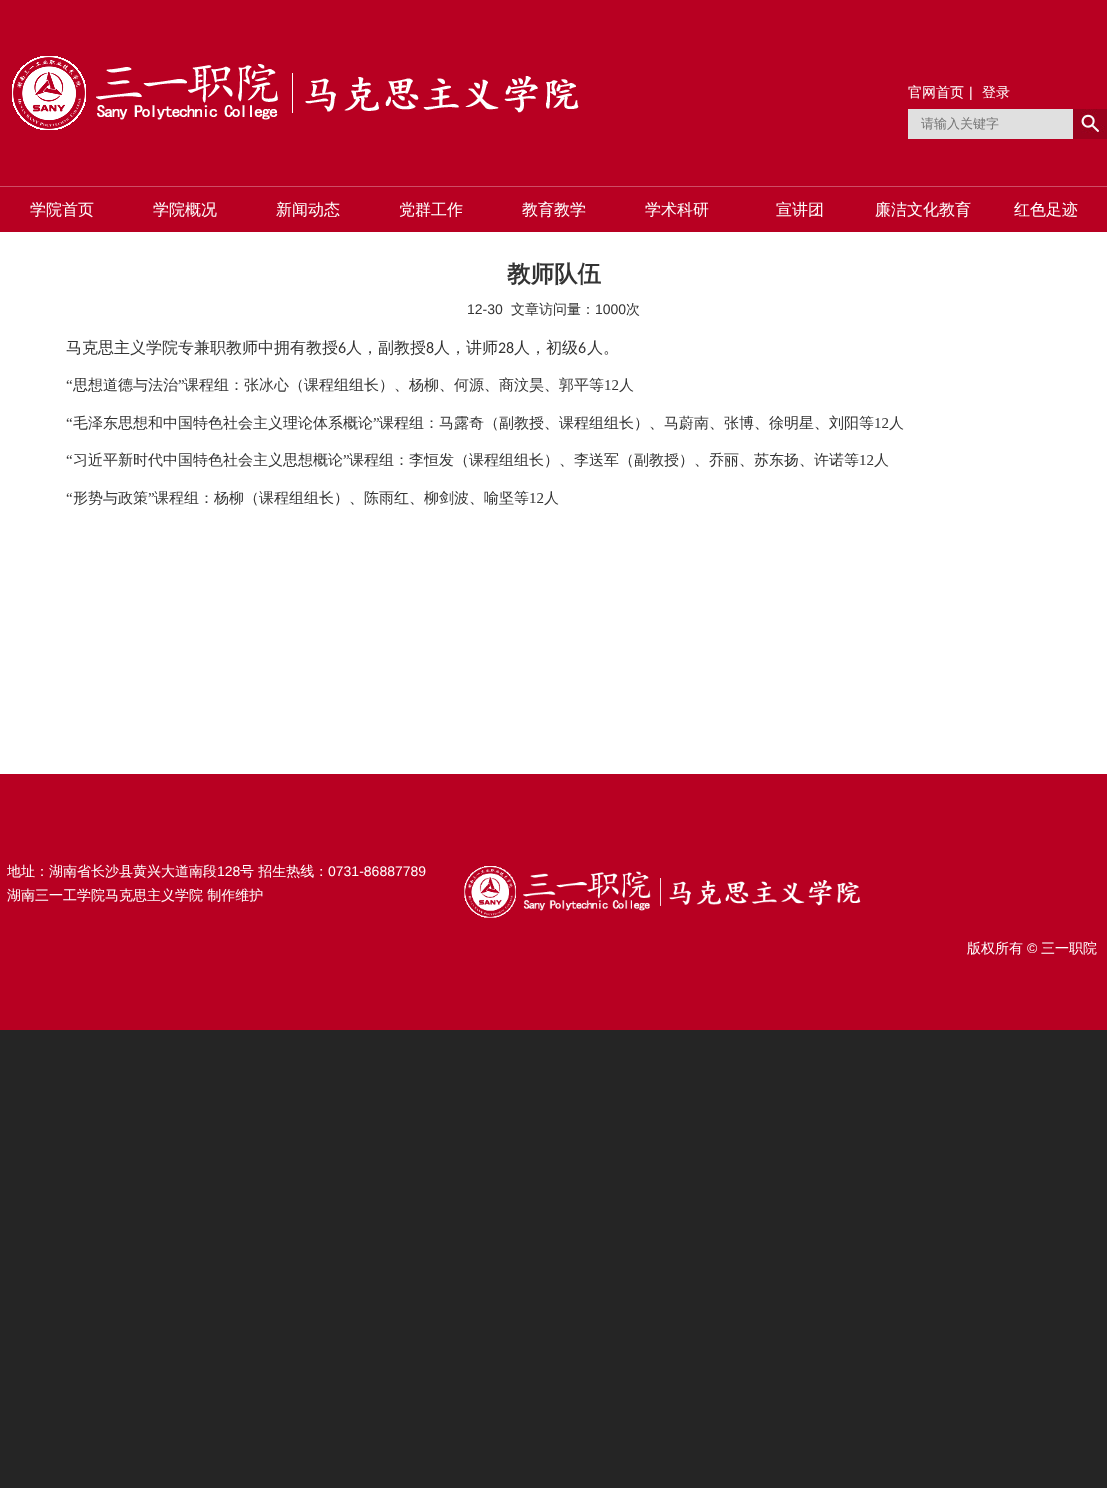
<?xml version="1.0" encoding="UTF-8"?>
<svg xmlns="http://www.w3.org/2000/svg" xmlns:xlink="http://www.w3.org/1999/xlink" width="1107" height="1488">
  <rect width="100%" height="100%" fill="#252525" />
  <rect width="1107" height="186" fill="#b80022" />
  <rect y="186" width="1107" height="1" fill="#cd4d65" />
  <image x="12" y="56" width="567" height="74" xlink:href="image1.png" />
  <rect x="908" y="109" width="165" height="30" fill="#e0e0e0" />
  <image x="1073" y="109" width="34" height="30" xlink:href="image2.png" />
  <rect y="187" width="1107" height="45" fill="#b80022" />
  <rect y="232" width="1107" height="542" fill="#ffffff" />
  <rect y="774" width="1107" height="256" fill="#b80022" />
  <image x="464" y="866" width="397" height="52" xlink:href="image3.png" />
  <text x="908" y="97" style="font-family: WenQuanYi Zen Hei; font-size: 14px; font-weight: 500; fill: #ffffff">官网首页</text>
  <text x="969" y="97" style="font-family: Liberation Sans; font-size: 14px; fill: #ffffff">|</text>
  <text x="982" y="97" style="font-family: WenQuanYi Zen Hei; font-size: 14px; font-weight: 500; fill: #ffffff">登录</text>
  <text x="921" y="128" style="font-family: WenQuanYi Zen Hei; font-size: 13px; font-weight: 500; fill: #757575">请输入关键字</text>
  <text x="30" y="215" style="font-family: WenQuanYi Zen Hei; font-size: 16px; font-weight: 500; fill: #ffffff">学院首页</text>
  <text x="153" y="215" style="font-family: WenQuanYi Zen Hei; font-size: 16px; font-weight: 500; fill: #ffffff">学院概况</text>
  <text x="276" y="215" style="font-family: WenQuanYi Zen Hei; font-size: 16px; font-weight: 500; fill: #ffffff">新闻动态</text>
  <text x="399" y="215" style="font-family: WenQuanYi Zen Hei; font-size: 16px; font-weight: 500; fill: #ffffff">党群工作</text>
  <text x="522" y="215" style="font-family: WenQuanYi Zen Hei; font-size: 16px; font-weight: 500; fill: #ffffff">教育教学</text>
  <text x="645" y="215" style="font-family: WenQuanYi Zen Hei; font-size: 16px; font-weight: 500; fill: #ffffff">学术科研</text>
  <text x="776" y="215" style="font-family: WenQuanYi Zen Hei; font-size: 16px; font-weight: 500; fill: #ffffff">宣讲团</text>
  <text x="875" y="215" style="font-family: WenQuanYi Zen Hei; font-size: 16px; font-weight: 500; fill: #ffffff">廉洁文化教育</text>
  <text x="1014" y="215" style="font-family: WenQuanYi Zen Hei; font-size: 16px; font-weight: 500; fill: #ffffff">红色足迹</text>
  <text x="507" y="282" style="font-family: WenQuanYi Zen Hei; font-size: 23.5px; font-weight: bold; fill: #333333">教师队伍</text>
  <text x="467" y="314" style="font-family: Liberation Sans; font-size: 14px; fill: #333333">12-30</text>
  <text x="511" y="314" style="font-family: WenQuanYi Zen Hei; font-size: 14px; font-weight: 500; fill: #333333">文章访问量：</text>
  <text x="595" y="314" style="font-family: Liberation Sans; font-size: 14px; fill: #333333">1000</text>
  <text x="626" y="314" style="font-family: WenQuanYi Zen Hei; font-size: 14px; font-weight: 500; fill: #333333">次</text>
  <text x="66" y="353" style="font-family: WenQuanYi Zen Hei; font-size: 16px; font-weight: 500; fill: #333333">马克思主义学院专兼职教师中拥有教授</text>
  <text x="338" y="353" style="font-family: Carlito; font-size: 16px; fill: #333333">6</text>
  <text x="346" y="353" style="font-family: WenQuanYi Zen Hei; font-size: 16px; font-weight: 500; fill: #333333">人，副教授</text>
  <text x="426" y="353" style="font-family: Carlito; font-size: 16px; fill: #333333">8</text>
  <text x="434" y="353" style="font-family: WenQuanYi Zen Hei; font-size: 16px; font-weight: 500; fill: #333333">人，讲师</text>
  <text x="498" y="353" style="font-family: Carlito; font-size: 16px; fill: #333333">28</text>
  <text x="514" y="353" style="font-family: WenQuanYi Zen Hei; font-size: 16px; font-weight: 500; fill: #333333">人，初级</text>
  <text x="578" y="353" style="font-family: Carlito; font-size: 16px; fill: #333333">6</text>
  <text x="587" y="353" style="font-family: WenQuanYi Zen Hei; font-size: 16px; font-weight: 500; fill: #333333">人。</text>
  <text x="66" y="390" style="font-family: Liberation Serif; font-size: 15px; fill: #333333">“</text>
  <text x="73" y="390" style="font-family: WenQuanYi Zen Hei; font-size: 15px; font-weight: 500; fill: #333333">思想道德与法治</text>
  <text x="178" y="390" style="font-family: Liberation Serif; font-size: 15px; fill: #333333">”</text>
  <text x="184" y="390" style="font-family: WenQuanYi Zen Hei; font-size: 15px; font-weight: 500; fill: #333333">课程组：张冰心（课程组组长）、杨柳、何源、商汶昊、郭平等</text>
  <text x="604" y="390" style="font-family: Liberation Serif; font-size: 15px; fill: #333333">12</text>
  <text x="619" y="390" style="font-family: WenQuanYi Zen Hei; font-size: 15px; font-weight: 500; fill: #333333">人</text>
  <text x="66" y="428" style="font-family: Liberation Serif; font-size: 15px; fill: #333333">“</text>
  <text x="73" y="428" style="font-family: WenQuanYi Zen Hei; font-size: 15px; font-weight: 500; fill: #333333">毛泽东思想和中国特色社会主义理论体系概论</text>
  <text x="373" y="428" style="font-family: Liberation Serif; font-size: 15px; fill: #333333">”</text>
  <text x="379" y="428" style="font-family: WenQuanYi Zen Hei; font-size: 15px; font-weight: 500; fill: #333333">课程组：马露奇（副教授、课程组组长）、马蔚南、张博、徐明星、刘阳等</text>
  <text x="874" y="428" style="font-family: Liberation Serif; font-size: 15px; fill: #333333">12</text>
  <text x="889" y="428" style="font-family: WenQuanYi Zen Hei; font-size: 15px; font-weight: 500; fill: #333333">人</text>
  <text x="66" y="465" style="font-family: Liberation Serif; font-size: 15px; fill: #333333">“</text>
  <text x="73" y="465" style="font-family: WenQuanYi Zen Hei; font-size: 15px; font-weight: 500; fill: #333333">习近平新时代中国特色社会主义思想概论</text>
  <text x="343" y="465" style="font-family: Liberation Serif; font-size: 15px; fill: #333333">”</text>
  <text x="349" y="465" style="font-family: WenQuanYi Zen Hei; font-size: 15px; font-weight: 500; fill: #333333">课程组：李恒发（课程组组长）、李送军（副教授）、乔丽、苏东扬、许诺等</text>
  <text x="859" y="465" style="font-family: Liberation Serif; font-size: 15px; fill: #333333">12</text>
  <text x="874" y="465" style="font-family: WenQuanYi Zen Hei; font-size: 15px; font-weight: 500; fill: #333333">人</text>
  <text x="66" y="503" style="font-family: Liberation Serif; font-size: 15px; fill: #333333">“</text>
  <text x="73" y="503" style="font-family: WenQuanYi Zen Hei; font-size: 15px; font-weight: 500; fill: #333333">形势与政策</text>
  <text x="148" y="503" style="font-family: Liberation Serif; font-size: 15px; fill: #333333">”</text>
  <text x="154" y="503" style="font-family: WenQuanYi Zen Hei; font-size: 15px; font-weight: 500; fill: #333333">课程组：杨柳（课程组组长）、陈雨红、柳剑波、喻坚等</text>
  <text x="529" y="503" style="font-family: Liberation Serif; font-size: 15px; fill: #333333">12</text>
  <text x="544" y="503" style="font-family: WenQuanYi Zen Hei; font-size: 15px; font-weight: 500; fill: #333333">人</text>
  <text x="7" y="876" style="font-family: WenQuanYi Zen Hei; font-size: 14px; font-weight: 500; fill: #ffffff">地址：湖南省长沙县黄兴大道南段</text>
  <text x="217" y="876" style="font-family: Liberation Sans; font-size: 14px; fill: #ffffff">128</text>
  <text x="240" y="876" style="font-family: WenQuanYi Zen Hei; font-size: 14px; font-weight: 500; fill: #ffffff">号 招生热线：</text>
  <text x="328" y="876" style="font-family: Liberation Sans; font-size: 14px; fill: #ffffff">0731-86887789</text>
  <text x="7" y="900" style="font-family: WenQuanYi Zen Hei; font-size: 14px; font-weight: 500; fill: #ffffff">湖南三一工学院马克思主义学院 制作维护</text>
  <text x="967" y="953" style="font-family: WenQuanYi Zen Hei; font-size: 14px; font-weight: 500; fill: #ffffff">版权所有</text>
  <text x="1027" y="953" style="font-family: Liberation Sans; font-size: 14px; fill: #ffffff">©</text>
  <text x="1041" y="953" style="font-family: WenQuanYi Zen Hei; font-size: 14px; font-weight: 500; fill: #ffffff">三一职院</text>
</svg>
